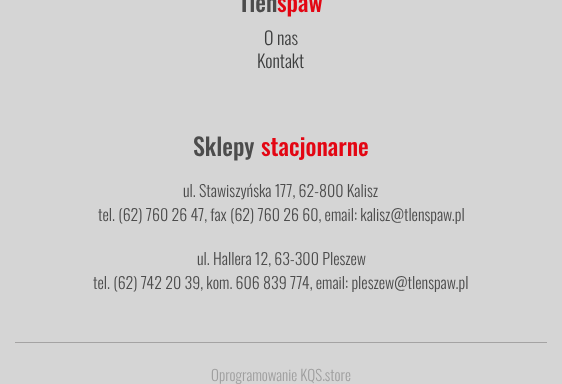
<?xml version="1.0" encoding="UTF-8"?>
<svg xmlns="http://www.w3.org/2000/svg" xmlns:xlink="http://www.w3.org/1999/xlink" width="562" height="384">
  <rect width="100%" height="100%" fill="#d5d5d5" />
  <rect x="15" y="342" width="532" height="1" fill="#a4a3a3" />
  <text x="239" y="12" style="font-family: Oswald; font-size: 24px; font-weight: 500; fill: #4c4c4c">Tlen</text>
  <text x="277" y="12" style="font-family: Oswald; font-size: 24px; font-weight: 500; fill: #e30613">spaw</text>
  <text x="264" y="45" style="font-family: Oswald; font-size: 18px; font-weight: 300; fill: #3c3d3d">O nas</text>
  <text x="257" y="68" style="font-family: Oswald; font-size: 18px; font-weight: 300; fill: #3c3d3d">Kontakt</text>
  <text x="193" y="156" style="font-family: Oswald; font-size: 24px; font-weight: 500; fill: #4c4c4c">Sklepy</text>
  <text x="261" y="156" style="font-family: Oswald; font-size: 24px; font-weight: 500; fill: #e30613">stacjonarne</text>
  <text x="183" y="197" style="font-family: Oswald; font-size: 16px; font-weight: 300; fill: #4c4c4c">ul. Stawiszyńska 177, 62-800 Kalisz</text>
  <text x="98" y="221" style="font-family: Oswald; font-size: 16px; font-weight: 300; fill: #4c4c4c">tel. (62) 760 26 47, fax (62) 760 26 60, email: kalisz@tlenspaw.pl</text>
  <text x="197" y="265" style="font-family: Oswald; font-size: 16px; font-weight: 300; fill: #4c4c4c">ul. Hallera 12, 63-300 Pleszew</text>
  <text x="93" y="289" style="font-family: Oswald; font-size: 16px; font-weight: 300; fill: #4c4c4c">tel. (62) 742 20 39, kom. 606 839 774, email: pleszew@tlenspaw.pl</text>
  <text x="211" y="381" style="font-family: Oswald; font-size: 15px; font-weight: 300; fill: #9f9f9f">Oprogramowanie KQS.store</text>
</svg>
